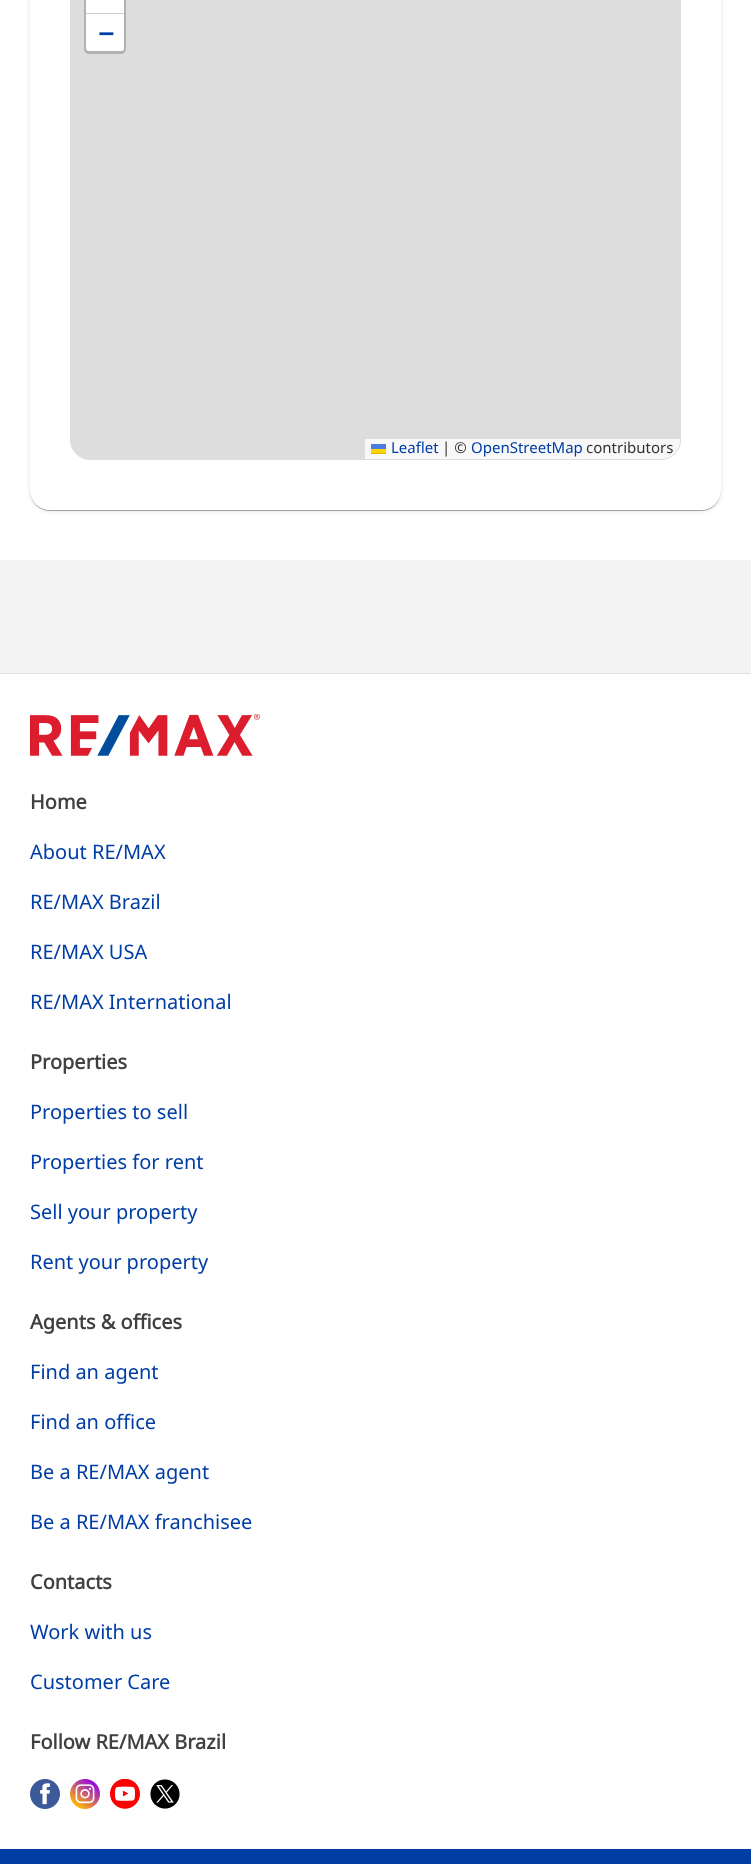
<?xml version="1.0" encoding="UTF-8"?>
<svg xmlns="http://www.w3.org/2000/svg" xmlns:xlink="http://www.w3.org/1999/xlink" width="751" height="1864">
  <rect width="100%" height="100%" fill="#f3f3f3" />
  <rect width="751" height="560" fill="#ffffff" />
  <rect x="30" y="-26" width="691" height="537" rx="20" fill="#000000" fill-opacity="0.12" filter="blur(2px)" />
  <rect x="30" y="-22" width="691" height="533" rx="20" fill="#000000" fill-opacity="0.14" filter="blur(0.5px)" />
  <rect x="31" y="-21" width="689" height="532" rx="19" fill="#000000" fill-opacity="0.2" filter="blur(0.5px)" />
  <rect x="30" y="-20" width="691" height="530" rx="20" fill="#ffffff" />
  <rect x="70.5" y="-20.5" width="610" height="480" rx="19.5" fill="#dddddd" stroke="#dddddd" />
  <rect x="85.5" y="-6.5" width="39" height="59" rx="3.5" fill="none" stroke="#b1b1b1" stroke-width="3" />
  <rect x="86" width="38" height="13" fill="#ffffff" />
  <rect x="86" y="13" width="38" height="1" fill="#cccccc" />
  <path d="M 86 14 h 38 v 34.5 c 0 1.5 -1 2.5 -2.5 2.5 h -33 c -1.5 0 -2.5 -1 -2.5 -2.5 z" fill="#ffffff" />
  <path d="M 365 439 h 315 v 1 c 0 10.5 -8.5 19 -19 19 h -296 z" fill="#f8f8f8" />
  <rect x="371" y="444" width="15" height="5" fill="#4c7be1" />
  <rect x="371" y="449" width="15" height="4" fill="#ffd500" />
  <rect x="371" y="453" width="15" height="1" fill="#e0bc00" />
  <rect y="674" width="751" height="1175" fill="#ffffff" />
  <rect y="673" width="751" height="1" fill="#e0e0e0" />
  <image x="30" y="714" width="230" height="42" xlink:href="image1.png" />
  <image x="30" y="1779" width="30" height="30" xlink:href="image2.png" />
  <image x="70" y="1779" width="30" height="30" xlink:href="image3.png" />
  <image x="110" y="1779" width="30" height="30" xlink:href="image4.png" />
  <image x="150" y="1779" width="30" height="30" xlink:href="image5.png" />
  <rect y="1849" width="751" height="15" fill="#003da5" />
  <text x="98" y="44" style="font-family: Noto Sans; font-size: 28px; font-weight: bold; fill: #003da5">−</text>
  <text x="391" y="453" style="font-family: Noto Sans; font-size: 15px; fill: #003da5">Leaflet</text>
  <text x="442" y="453" style="font-family: Noto Sans; font-size: 15px; fill: #333333">| ©</text>
  <text x="471" y="453" style="font-family: Noto Sans; font-size: 15px; fill: #003da5">OpenStreetMap</text>
  <text x="586" y="453" style="font-family: Noto Sans; font-size: 15px; fill: #333333">contributors</text>
  <text x="30" y="809" style="font-family: Noto Sans; font-size: 20px; font-weight: bold; fill: #404041">Home</text>
  <text x="30" y="859" style="font-family: Noto Sans; font-size: 20px; fill: #003da5">About RE/MAX</text>
  <text x="30" y="909" style="font-family: Noto Sans; font-size: 20px; fill: #003da5">RE/MAX Brazil</text>
  <text x="30" y="959" style="font-family: Noto Sans; font-size: 20px; fill: #003da5">RE/MAX USA</text>
  <text x="30" y="1009" style="font-family: Noto Sans; font-size: 20px; fill: #003da5">RE/MAX International</text>
  <text x="30" y="1069" style="font-family: Noto Sans; font-size: 20px; font-weight: bold; fill: #404041">Properties</text>
  <text x="30" y="1119" style="font-family: Noto Sans; font-size: 20px; fill: #003da5">Properties to sell</text>
  <text x="30" y="1169" style="font-family: Noto Sans; font-size: 20px; fill: #003da5">Properties for rent</text>
  <text x="30" y="1219" style="font-family: Noto Sans; font-size: 20px; fill: #003da5">Sell your property</text>
  <text x="30" y="1269" style="font-family: Noto Sans; font-size: 20px; fill: #003da5">Rent your property</text>
  <text x="30" y="1329" style="font-family: Noto Sans; font-size: 20px; font-weight: bold; fill: #404041">Agents &amp; offices</text>
  <text x="30" y="1379" style="font-family: Noto Sans; font-size: 20px; fill: #003da5">Find an agent</text>
  <text x="30" y="1429" style="font-family: Noto Sans; font-size: 20px; fill: #003da5">Find an office</text>
  <text x="30" y="1479" style="font-family: Noto Sans; font-size: 20px; fill: #003da5">Be a RE/MAX agent</text>
  <text x="30" y="1529" style="font-family: Noto Sans; font-size: 20px; fill: #003da5">Be a RE/MAX franchisee</text>
  <text x="30" y="1589" style="font-family: Noto Sans; font-size: 20px; font-weight: bold; fill: #404041">Contacts</text>
  <text x="30" y="1639" style="font-family: Noto Sans; font-size: 20px; fill: #003da5">Work with us</text>
  <text x="30" y="1689" style="font-family: Noto Sans; font-size: 20px; fill: #003da5">Customer Care</text>
  <text x="30" y="1749" style="font-family: Noto Sans; font-size: 20px; font-weight: bold; fill: #404041">Follow RE/MAX Brazil</text>
</svg>
